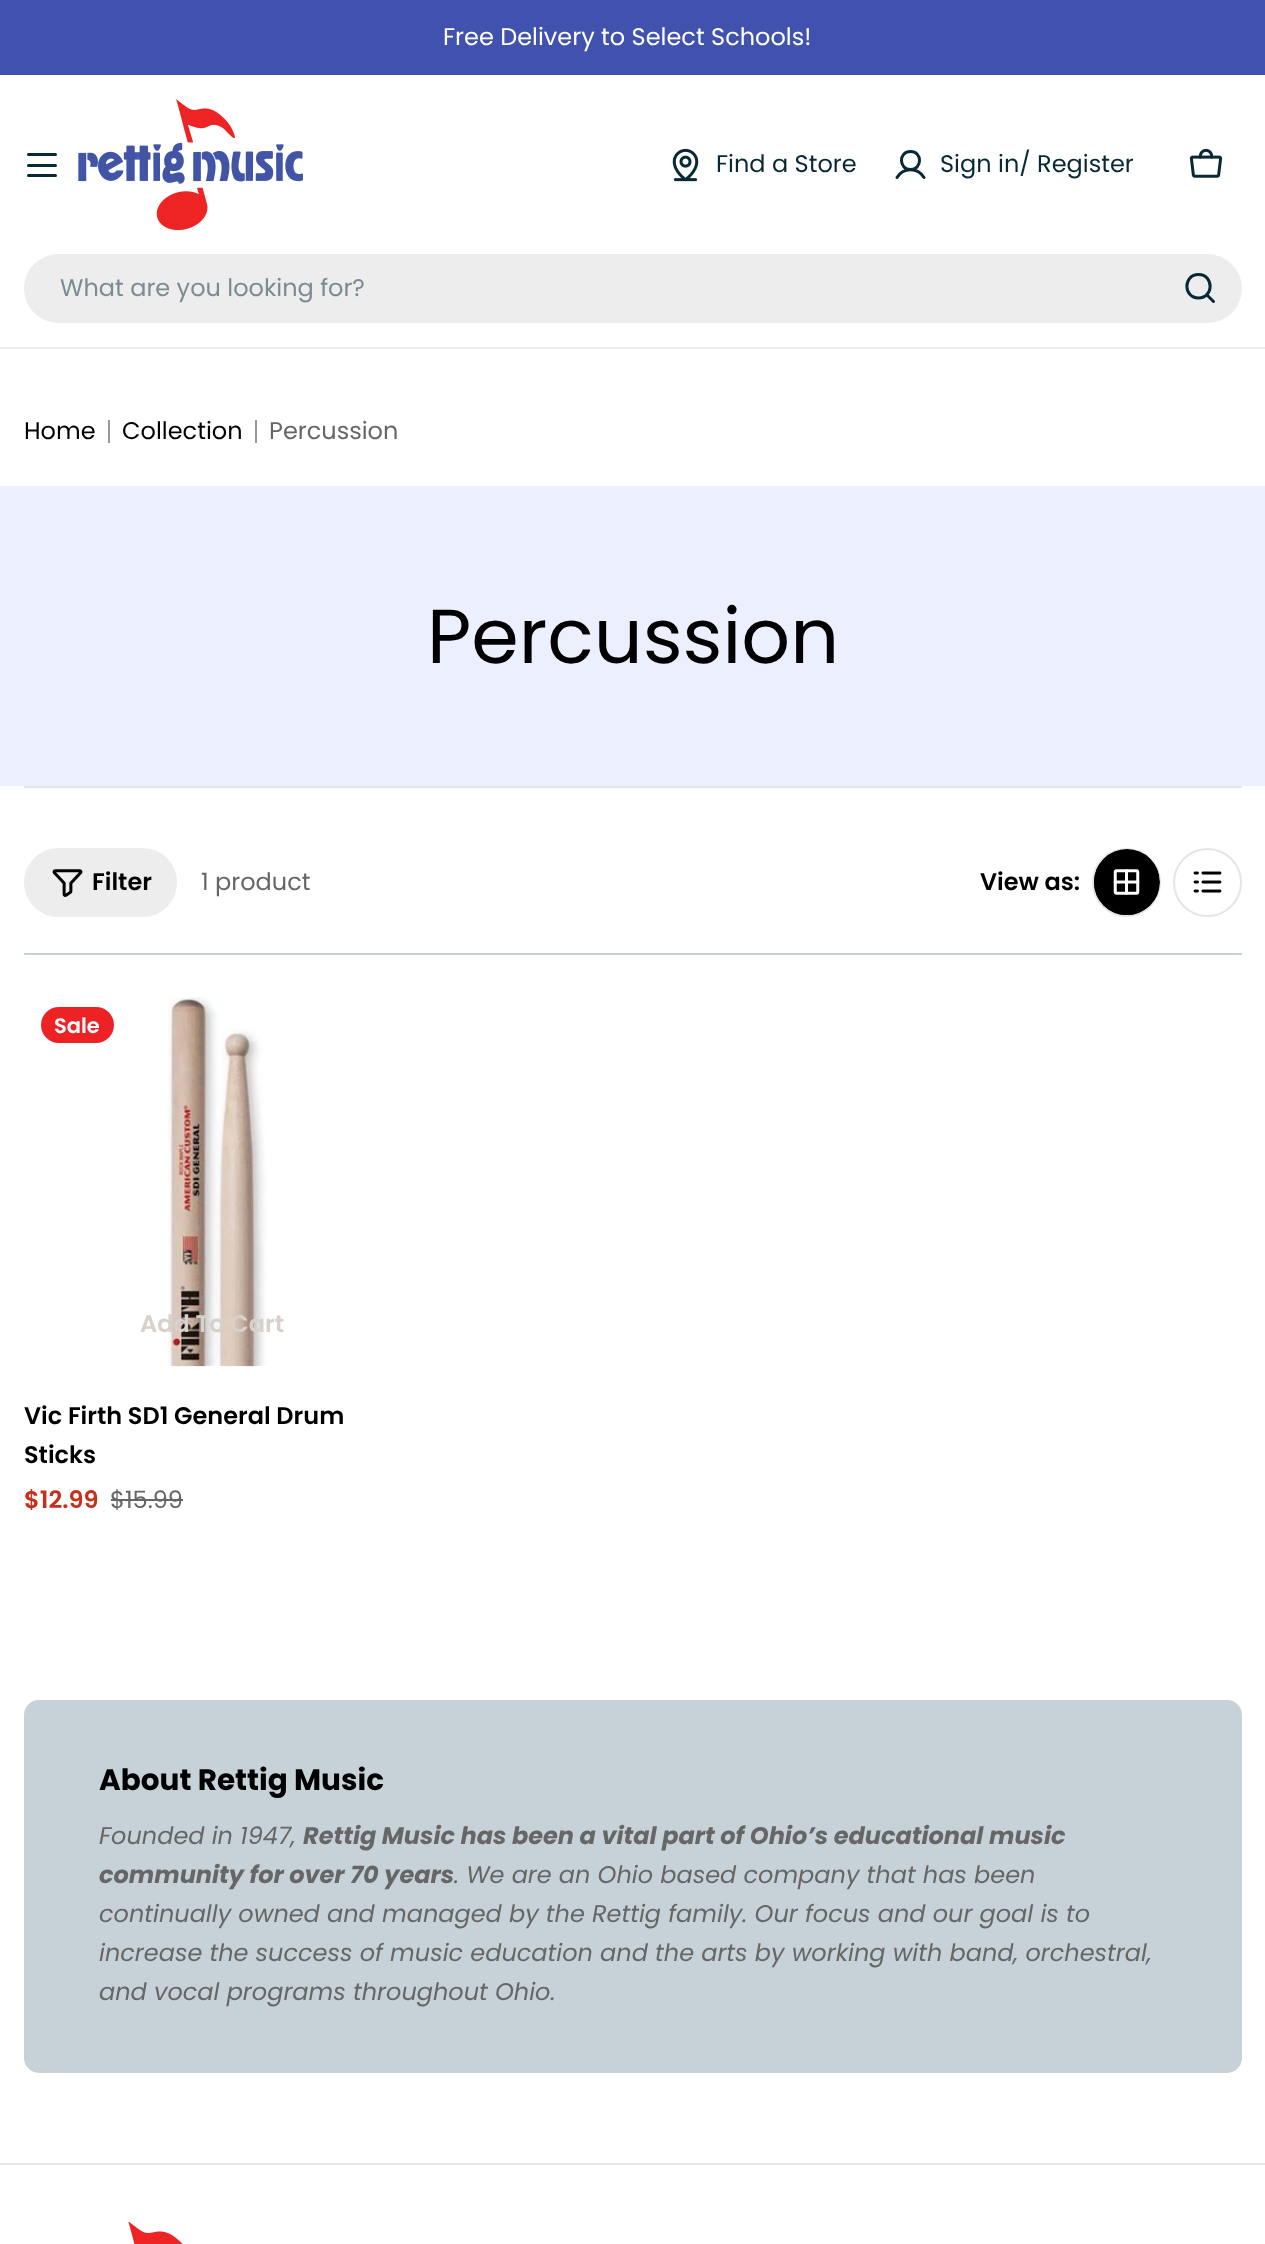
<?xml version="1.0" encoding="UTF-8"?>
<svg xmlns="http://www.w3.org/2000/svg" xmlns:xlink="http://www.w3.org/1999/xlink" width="1265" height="2244">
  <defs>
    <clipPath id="clip1"><rect x="1094" y="849" width="66" height="66" rx="33" /></clipPath>
  </defs>
  <rect width="100%" height="100%" fill="#ffffff" />
  <rect width="1265" height="75" fill="#4052ad" />
  <rect x="27" y="164" width="30" height="3" rx="1.5" fill="#072835" />
  <rect x="27" y="153" width="30" height="3" rx="1.5" fill="#072835" />
  <rect x="27" y="174" width="30" height="3" rx="1.5" fill="#072835" />
  <image x="78" y="99" width="225" height="131" xlink:href="image1.png" />
  <image x="672" y="148" width="27" height="34" xlink:href="image2.png" />
  <path d="M 910.5 169.5 c 12 0 12 -18 0 -18 c -12 0 -12 18 0 18 z m -13.5 8 c 6 -10.5 21 -10.5 27 0" fill="none" stroke="#072835" stroke-width="3" stroke-linecap="round" stroke-linejoin="round" />
  <image x="1189" y="148" width="34" height="30" xlink:href="image3.png" />
  <rect x="24" y="254" width="1218" height="69" rx="34.5" fill="#ededed" />
  <path d="M 1198.5 298 c 15.5 0 15.5 -23.5 0 -23.5 c -15.5 0 -15.5 23.5 0 23.5 z m 8 -3.5 l 7 7" fill="none" stroke="#072835" stroke-width="3" stroke-linecap="round" stroke-linejoin="round" />
  <rect y="347" width="1265" height="2" fill="#ededed" />
  <rect x="108" y="420" width="2" height="23" fill="#999999" />
  <rect x="255" y="420" width="2" height="23" fill="#999999" />
  <rect y="486" width="1265" height="300" fill="#eceffe" />
  <rect x="24" y="786" width="1218" height="2" fill="#e5e5e5" />
  <rect x="25" y="849" width="151" height="67" rx="33.5" fill="#ededed" stroke="#ededed" stroke-width="2" />
  <image x="52" y="869" width="31" height="28" xlink:href="image4.png" />
  <circle cx="1126.5" cy="882.5" r="33.5" fill="#000000" stroke="#e5e5e5" stroke-width="2" />
  <g clip-path="url(#clip1)">
    <rect x="1092" y="848" width="68" height="69" rx="34" fill="#000000" />
  </g>
  <image x="1113" y="869" width="27" height="26" xlink:href="image5.png" />
  <circle cx="1207.5" cy="882.5" r="33.5" fill="none" stroke="#e5e5e5" stroke-width="2" />
  <image x="1193" y="871" width="29" height="22" xlink:href="image6.png" />
  <rect x="24" y="953" width="1218" height="2" fill="#c7d2d8" />
  <rect x="41" y="1007" width="73" height="36" rx="18" fill="#ed2224" />
  <image x="168" y="997" width="99" height="370" xlink:href="image7.png" />
  <rect x="111" y="1499" width="72" height="2" fill="#666666" />
  <rect x="24" y="1700" width="1218" height="373" rx="15" fill="#c7d2d8" />
  <rect y="2163" width="1265" height="2" fill="#e6e6e6" />
  <image x="128" y="2222" width="55" height="22" xlink:href="image8.png" />
  <text x="443" y="45" style="font-family: Poppins; font-size: 24px; fill: #ffffff">Free Delivery to Select Schools!</text>
  <text x="716" y="172" style="font-family: Poppins; font-size: 24px; fill: #072835">Find a Store</text>
  <text x="940" y="172" style="font-family: Poppins; font-size: 24px; fill: #072835">Sign in/ Register</text>
  <text x="60" y="296" style="font-family: Poppins; font-size: 24px; fill: #7a8b91">What are you looking for?</text>
  <text x="24" y="439" style="font-family: Poppins; font-size: 24px; fill: #000000">Home</text>
  <text x="122" y="439" style="font-family: Poppins; font-size: 24px; fill: #000000">Collection</text>
  <text x="269" y="439" style="font-family: Poppins; font-size: 24px; fill: #666666">Percussion</text>
  <text x="427" y="663" style="font-family: Poppins; font-size: 76.5px; fill: #000000">Percussion</text>
  <text x="92" y="890" style="font-family: Poppins; font-size: 24px; font-weight: 600; fill: #000000">Filter</text>
  <text x="201" y="890" style="font-family: Poppins; font-size: 24px; fill: #666666">1 product</text>
  <text x="980" y="890" style="font-family: Poppins; font-size: 24px; font-weight: 600; fill: #000000">View as:</text>
  <text x="54" y="1033" style="font-family: Poppins; font-size: 21px; font-weight: 600; fill: #ffffff">Sale</text>
  <text x="140" y="1332" style="font-family: Poppins; font-size: 24px; font-weight: 600; fill: #d7d0cb">Add To Cart</text>
  <text x="24" y="1424" style="font-family: Poppins; font-size: 24px; font-weight: 600; fill: #000000">Vic Firth SD1 General Drum</text>
  <text x="24" y="1463" style="font-family: Poppins; font-size: 24px; font-weight: 600; fill: #000000">Sticks</text>
  <text x="24" y="1508" style="font-family: Poppins; font-size: 24px; font-weight: 600; fill: #c4301c">$12.99</text>
  <text x="110" y="1508" style="font-family: Poppins; font-size: 24px; fill: #666666">$15.99</text>
  <text x="99" y="1790" style="font-family: Poppins; font-size: 29.5px; font-weight: bold; fill: #000000">About Rettig Music</text>
  <text x="99" y="1844" style="font-family: Poppins; font-size: 24px; font-style: italic; fill: #666666">Founded in 1947,</text>
  <text x="303" y="1844" style="font-family: Poppins; font-size: 24px; font-weight: bold; font-style: italic; fill: #666666">Rettig Music has been a vital part of Ohio’s educational music</text>
  <text x="99" y="1883" style="font-family: Poppins; font-size: 24px; font-weight: bold; font-style: italic; fill: #666666">community for over 70 years</text>
  <text x="454" y="1883" style="font-family: Poppins; font-size: 24px; font-style: italic; fill: #666666">. We are an Ohio based company that has been</text>
  <text x="99" y="1922" style="font-family: Poppins; font-size: 24px; font-style: italic; fill: #666666">continually owned and managed by the Rettig family. Our focus and our goal is to</text>
  <text x="99" y="1961" style="font-family: Poppins; font-size: 24px; font-style: italic; fill: #666666">increase the success of music education and the arts by working with band, orchestral,</text>
  <text x="99" y="2000" style="font-family: Poppins; font-size: 24px; font-style: italic; fill: #666666">and vocal programs throughout Ohio.</text>
</svg>
